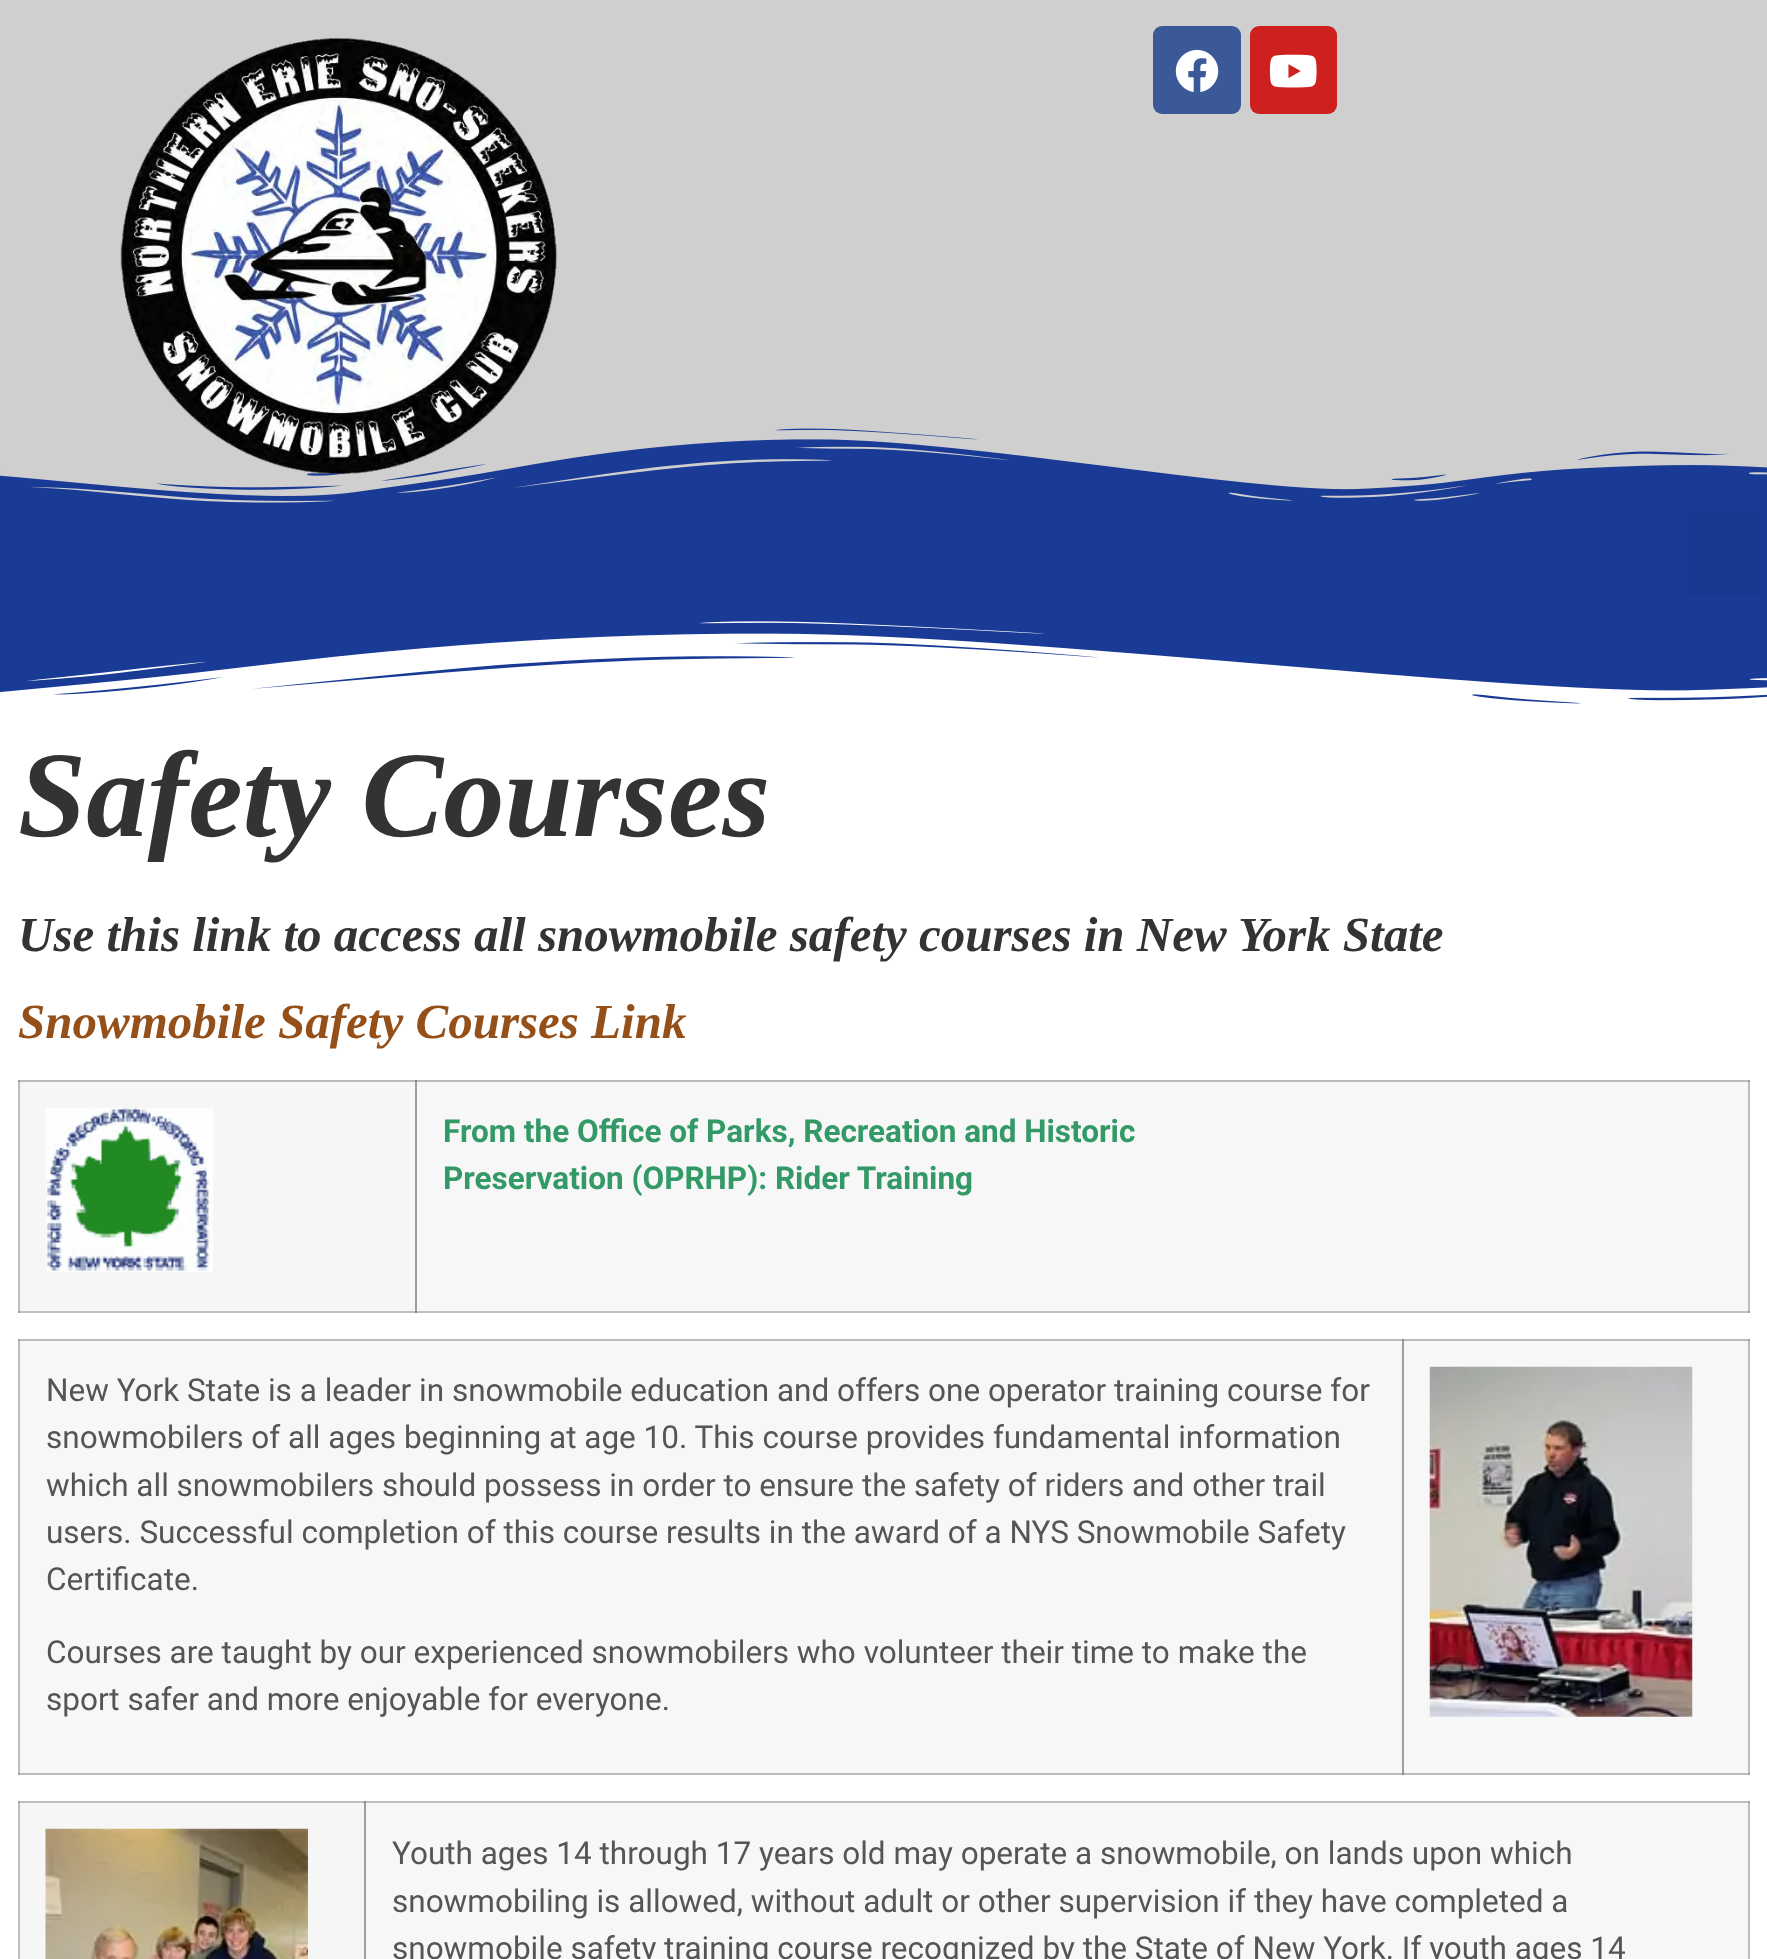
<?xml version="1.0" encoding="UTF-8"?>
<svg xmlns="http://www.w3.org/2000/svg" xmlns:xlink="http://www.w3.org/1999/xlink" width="1767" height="1959">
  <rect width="100%" height="100%" fill="#ffffff" />
  <rect x="18" y="1801" width="1" height="158" fill="#c0c0c0" />
  <rect x="18" y="1801" width="1732" height="2" fill="#c0c0c0" />
  <rect x="18" y="1801" width="2" height="2" fill="#a0a0a0" />
  <rect x="18" y="1339" width="1" height="436" fill="#c0c0c0" />
  <rect x="18" y="1773" width="2" height="2" fill="#a0a0a0" />
  <rect x="18" y="1339" width="2" height="2" fill="#a0a0a0" />
  <rect x="18" y="1080" width="1" height="233" fill="#c0c0c0" />
  <rect x="18" y="1311" width="1732" height="2" fill="#c0c0c0" />
  <rect x="18" y="1311" width="2" height="2" fill="#a0a0a0" />
  <rect x="18" y="1080" width="2" height="2" fill="#a0a0a0" />
  <rect x="415" y="1311" width="2" height="2" fill="#888888" />
  <rect x="1748" y="1311" width="2" height="2" fill="#a0a0a0" />
  <rect width="1767" height="503" fill="#cfcfcf" />
  <image x="0" y="428" width="1767" height="83" xlink:href="image4.png" />
  <image x="120" y="38" width="437" height="437" xlink:href="image1.png" />
  <rect x="1153" y="26" width="88" height="88" rx="9" fill="#3b5998" />
  <image x="1175" y="49" width="44" height="43" xlink:href="image2.png" />
  <rect x="1250" y="26" width="87" height="88" rx="9" fill="#cd201f" />
  <image x="1269" y="54" width="48" height="34" xlink:href="image3.png" />
  <rect y="511" width="1767" height="193" fill="#193a95" />
  <rect x="1687" y="511" width="72" height="84" rx="5" fill="#18378e" />
  <image x="0" y="621" width="1767" height="95" xlink:href="image5.png" />
  <rect x="20" y="1082" width="395" height="229" fill="#f6f6f6" />
  <rect x="19" y="1080" width="1" height="231" fill="#bbbbbb" />
  <rect x="19" y="1080" width="396" height="2" fill="#bbbbbb" />
  <rect x="19" y="1080" width="1" height="2" fill="#9e9e9e" />
  <image x="46" y="1107" width="167" height="165" xlink:href="image6.png" />
  <rect x="417" y="1082" width="1331" height="229" fill="#f7f7f7" />
  <rect x="415" y="1080" width="2" height="231" fill="#9e9e9e" />
  <rect x="1748" y="1080" width="2" height="231" fill="#bcbcbc" />
  <rect x="415" y="1080" width="1335" height="2" fill="#bcbcbc" />
  <rect x="415" y="1080" width="2" height="2" fill="#888888" />
  <rect x="1748" y="1080" width="2" height="2" fill="#9e9e9e" />
  <rect x="20" y="1341" width="1382" height="432" fill="#f7f7f7" />
  <rect x="19" y="1339" width="1" height="436" fill="#bcbcbc" />
  <rect x="19" y="1773" width="1731" height="2" fill="#bcbcbc" />
  <rect x="19" y="1773" width="1" height="2" fill="#9e9e9e" />
  <rect x="19" y="1339" width="1385" height="2" fill="#bcbcbc" />
  <rect x="19" y="1339" width="1" height="2" fill="#9e9e9e" />
  <rect x="1402" y="1339" width="2" height="436" fill="#9e9e9e" />
  <rect x="1402" y="1773" width="2" height="2" fill="#888888" />
  <rect x="1404" y="1341" width="344" height="432" fill="#f7f7f7" />
  <rect x="1748" y="1339" width="2" height="436" fill="#bcbcbc" />
  <rect x="1748" y="1773" width="2" height="2" fill="#9e9e9e" />
  <rect x="1402" y="1339" width="348" height="2" fill="#bcbcbc" />
  <rect x="1402" y="1339" width="2" height="2" fill="#888888" />
  <rect x="1748" y="1339" width="2" height="2" fill="#9e9e9e" />
  <image x="1429" y="1366" width="264" height="351" xlink:href="image7.png" />
  <rect x="20" y="1803" width="344" height="156" fill="#f6f6f6" />
  <rect x="19" y="1803" width="1" height="156" fill="#bbbbbb" />
  <image x="45" y="1828" width="263" height="131" xlink:href="image8.png" />
  <rect x="366" y="1803" width="1382" height="156" fill="#f7f7f7" />
  <rect x="364" y="1803" width="2" height="156" fill="#9e9e9e" />
  <rect x="1748" y="1803" width="2" height="156" fill="#bcbcbc" />
  <rect x="364" y="1801" width="2" height="2" fill="#888888" />
  <rect x="1748" y="1801" width="2" height="2" fill="#a0a0a0" />
  <text x="18" y="836" style="font-family: Liberation Serif; font-size: 122.5px; font-weight: bold; font-style: italic; fill: #333333">Safety Courses</text>
  <text x="18" y="951" style="font-family: Liberation Serif; font-size: 49px; font-weight: bold; font-style: italic; fill: #333333">Use this link to access all snowmobile safety courses in New York State</text>
  <text x="18" y="1038" style="font-family: Liberation Serif; font-size: 49px; font-weight: bold; font-style: italic; fill: #954f19">Snowmobile Safety Courses Link</text>
  <text x="443" y="1142" style="font-family: Roboto; font-size: 31.5px; font-weight: bold; fill: #339966">From the Office of Parks, Recreation and Historic</text>
  <text x="443" y="1189" style="font-family: Roboto; font-size: 31.5px; font-weight: bold; fill: #339966">Preservation (OPRHP): Rider Training</text>
  <text x="46" y="1401" style="font-family: Roboto; font-size: 31.5px; fill: #555555">New York State is a leader in snowmobile education and offers one operator training course for</text>
  <text x="46" y="1448" style="font-family: Roboto; font-size: 31.5px; fill: #555555">snowmobilers of all ages beginning at age 10. This course provides fundamental information</text>
  <text x="46" y="1496" style="font-family: Roboto; font-size: 31.5px; fill: #555555">which all snowmobilers should possess in order to ensure the safety of riders and other trail</text>
  <text x="46" y="1543" style="font-family: Roboto; font-size: 31.5px; fill: #555555">users. Successful completion of this course results in the award of a NYS Snowmobile Safety</text>
  <text x="46" y="1590" style="font-family: Roboto; font-size: 31.5px; fill: #555555">Certificate.</text>
  <text x="46" y="1663" style="font-family: Roboto; font-size: 31.5px; fill: #555555">Courses are taught by our experienced snowmobilers who volunteer their time to make the</text>
  <text x="46" y="1710" style="font-family: Roboto; font-size: 31.5px; fill: #555555">sport safer and more enjoyable for everyone.</text>
  <text x="392" y="1864" style="font-family: Roboto; font-size: 31.5px; fill: #555555">Youth ages 14 through 17 years old may operate a snowmobile, on lands upon which</text>
  <text x="392" y="1912" style="font-family: Roboto; font-size: 31.5px; fill: #555555">snowmobiling is allowed, without adult or other supervision if they have completed a</text>
  <text x="392" y="1959" style="font-family: Roboto; font-size: 31.5px; fill: #555555">snowmobile safety training course recognized by the State of New York. If youth ages 14</text>
</svg>
